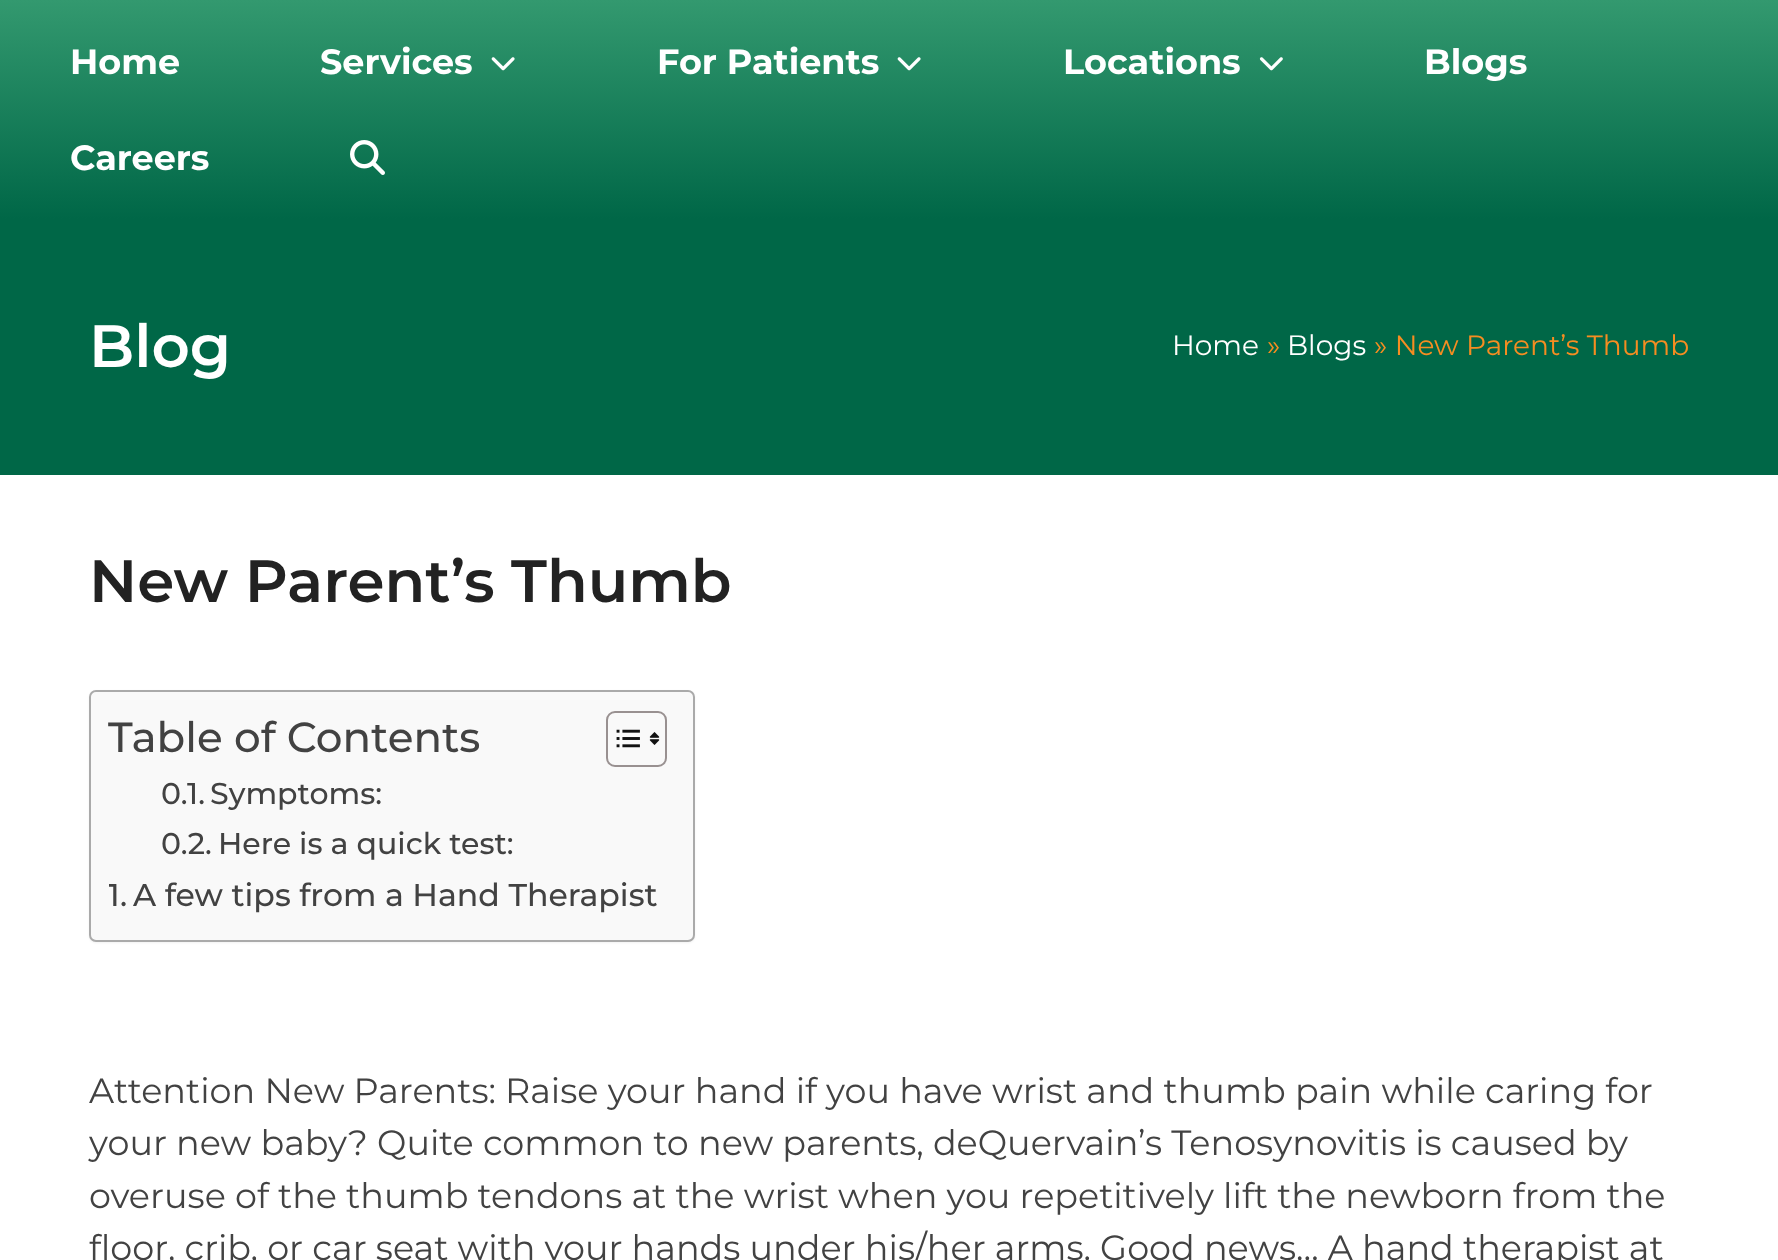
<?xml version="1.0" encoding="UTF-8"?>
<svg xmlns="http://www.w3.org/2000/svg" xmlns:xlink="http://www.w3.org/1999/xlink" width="1778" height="1260">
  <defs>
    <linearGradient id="g1" gradientUnits="userSpaceOnUse" x1="889" y1="0" x2="889" y2="219"><stop offset="0" stop-color="#33996f" /><stop offset="1" stop-color="#006747" /></linearGradient>
    <clipPath id="clip1"><rect x="109" y="870" width="549" height="52" /></clipPath>
  </defs>
  <rect width="100%" height="100%" fill="#ffffff" />
  <rect width="1778" height="219" fill="url(#g1)" />
  <image x="491" y="57" width="24" height="14" xlink:href="image1.png" />
  <image x="897" y="57" width="24" height="14" xlink:href="image1.png" />
  <image x="1259" y="57" width="24" height="14" xlink:href="image2.png" />
  <image x="350" y="140" width="35" height="35" xlink:href="image3.png" />
  <rect y="219" width="1778" height="256" fill="#006747" />
  <rect x="89" y="691" width="606" height="252" rx="7" fill="#000000" fill-opacity="0.05" filter="blur(1px)" />
  <rect x="90" y="691" width="604" height="250" rx="6" fill="#f9f9f9" stroke="#aaaaaa" stroke-width="2" />
  <rect x="607" y="712" width="59" height="54" rx="8" fill="none" stroke="#999191" stroke-width="2" />
  <image x="616" y="729" width="24" height="19" xlink:href="image4.png" />
  <image x="649" y="732" width="11" height="13" xlink:href="image5.png" />
  <text x="70" y="74" style="font-family: Montserrat; font-size: 35px; font-weight: bold; fill: #ffffff">Home</text>
  <text x="320" y="74" style="font-family: Montserrat; font-size: 35px; font-weight: bold; fill: #ffffff">Services</text>
  <text x="657" y="74" style="font-family: Montserrat; font-size: 35px; font-weight: bold; fill: #ffffff">For Patients</text>
  <text x="1063" y="74" style="font-family: Montserrat; font-size: 35px; font-weight: bold; fill: #ffffff">Locations</text>
  <text x="1424" y="74" style="font-family: Montserrat; font-size: 35px; font-weight: bold; fill: #ffffff">Blogs</text>
  <text x="70" y="170" style="font-family: Montserrat; font-size: 35px; font-weight: bold; fill: #ffffff">Careers</text>
  <text x="89" y="367" style="font-family: Montserrat; font-size: 59.5px; font-weight: 600; fill: #ffffff">Blog</text>
  <text x="1172" y="355" style="font-family: Montserrat; font-size: 28px; fill: #ffffff">Home</text>
  <text x="1267" y="355" style="font-family: Montserrat; font-size: 28px; fill: #f68d21">»</text>
  <text x="1287" y="355" style="font-family: Montserrat; font-size: 28px; fill: #ffffff">Blogs</text>
  <text x="1374" y="355" style="font-family: Montserrat; font-size: 28px; fill: #f68d21">» New Parent’s Thumb</text>
  <text x="89" y="602" style="font-family: Montserrat; font-size: 59.5px; font-weight: 600; fill: #222222">New Parent’s Thumb</text>
  <text x="108" y="752" style="font-family: Montserrat; font-size: 42px; font-weight: 500; fill: #424242">Table of Contents</text>
  <text x="161" y="804" style="font-family: Montserrat; font-size: 30px; font-weight: 500; fill: #424242">0.1.</text>
  <text x="210" y="804" style="font-family: Montserrat; font-size: 30px; font-weight: 500; fill: #424242">Symptoms:</text>
  <text x="161" y="854" style="font-family: Montserrat; font-size: 30px; font-weight: 500; fill: #424242">0.2</text>
  <text x="205" y="854" style="font-family: Montserrat; font-size: 30px; font-weight: 500; fill: #424242">.</text>
  <text x="218" y="854" style="font-family: Montserrat; font-size: 30px; font-weight: 500; fill: #424242">Here is a quick test:</text>
  <g clip-path="url(#clip1)">
    <text x="108" y="906" style="font-family: Montserrat; font-size: 31.6px; font-weight: 500; fill: #424242">1</text>
  </g>
  <text x="120" y="906" style="font-family: Montserrat; font-size: 31.6px; font-weight: 500; fill: #424242">.</text>
  <text x="133" y="906" style="font-family: Montserrat; font-size: 31.6px; font-weight: 500; fill: #424242">A few tips from a Hand Therapist</text>
  <text x="89" y="1103" style="font-family: Montserrat; font-size: 35px; fill: #424242">Attention New Parents: Raise your hand if you have wrist and thumb pain while caring for</text>
  <text x="89" y="1155" style="font-family: Montserrat; font-size: 35px; fill: #424242">your new baby? Quite common to new parents, deQuervain’s Tenosynovitis is caused by</text>
  <text x="89" y="1208" style="font-family: Montserrat; font-size: 35px; fill: #424242">overuse of the thumb tendons at the wrist when you repetitively lift the newborn from the</text>
  <text x="89" y="1260" style="font-family: Montserrat; font-size: 35px; fill: #424242">floor, crib, or car seat with your hands under his/her arms. Good news… A hand therapist at</text>
</svg>
